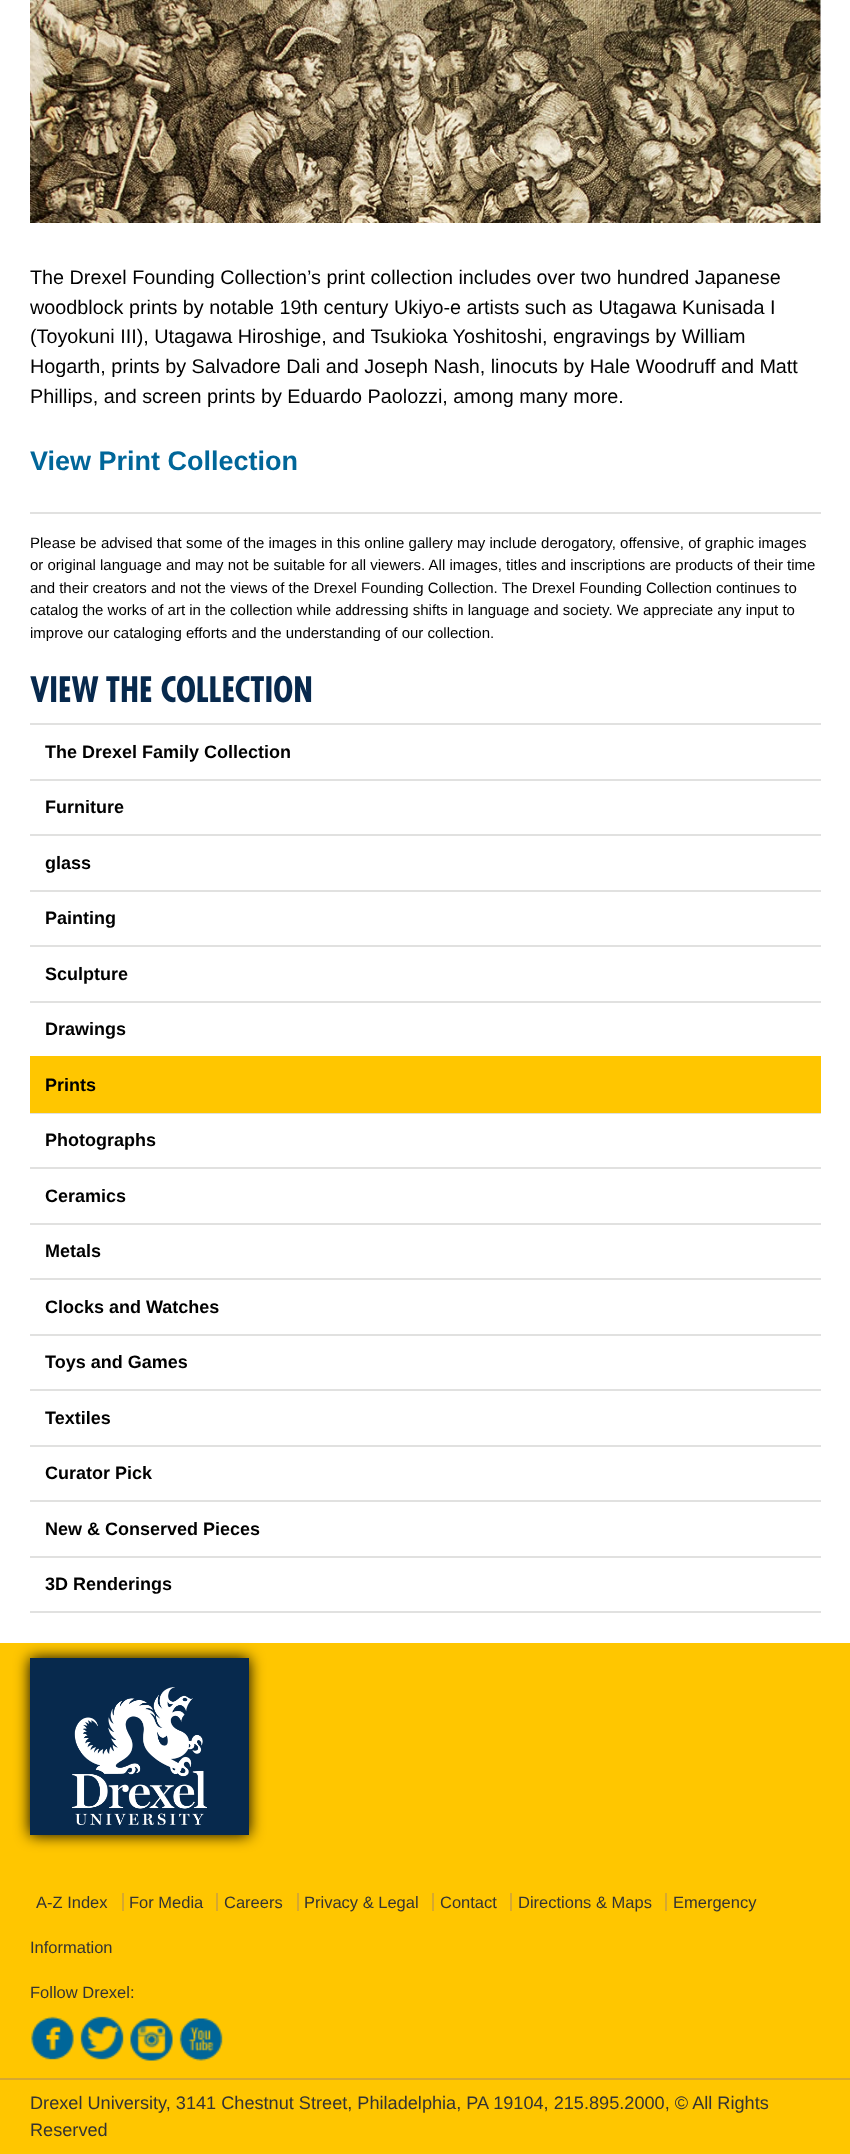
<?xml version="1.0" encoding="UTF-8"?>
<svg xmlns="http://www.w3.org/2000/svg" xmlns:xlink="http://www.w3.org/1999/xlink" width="850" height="2154">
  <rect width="100%" height="100%" fill="#ffffff" />
  <image x="30" y="0" width="791" height="223" xlink:href="image1.png" />
  <rect x="30" y="512" width="791" height="2" fill="#e1e1e0" />
  <rect x="30" y="723" width="791" height="2" fill="#e1e1e0" />
  <rect x="30" y="779" width="791" height="2" fill="#e1e1e0" />
  <rect x="30" y="834" width="791" height="2" fill="#e1e1e0" />
  <rect x="30" y="890" width="791" height="2" fill="#e1e1e0" />
  <rect x="30" y="945" width="791" height="2" fill="#e1e1e0" />
  <rect x="30" y="1001" width="791" height="2" fill="#e1e1e0" />
  <rect x="30" y="1113" width="791" height="1" fill="#e1e1e0" />
  <rect x="30" y="1056" width="791" height="57" fill="#ffc600" />
  <rect x="30" y="1167" width="791" height="2" fill="#e1e1e0" />
  <rect x="30" y="1223" width="791" height="2" fill="#e1e1e0" />
  <rect x="30" y="1278" width="791" height="2" fill="#e1e1e0" />
  <rect x="30" y="1334" width="791" height="2" fill="#e1e1e0" />
  <rect x="30" y="1389" width="791" height="2" fill="#e1e1e0" />
  <rect x="30" y="1445" width="791" height="2" fill="#e1e1e0" />
  <rect x="30" y="1500" width="791" height="2" fill="#e1e1e0" />
  <rect x="30" y="1556" width="791" height="2" fill="#e1e1e0" />
  <rect x="30" y="1611" width="791" height="2" fill="#e1e1e0" />
  <rect y="1643" width="850" height="511" fill="#ffc600" />
  <rect x="30" y="1658" width="219" height="177" fill="#000000" filter="blur(7.5px)" />
  <rect x="30" y="1658" width="219" height="177" fill="#07294d" />
  <image x="72" y="1687" width="135" height="138" xlink:href="image2.png" />
  <rect x="122" y="1893" width="2" height="18" fill="#d6a831" />
  <rect x="216" y="1893" width="2" height="18" fill="#d6a831" />
  <rect x="297" y="1893" width="2" height="18" fill="#d6a831" />
  <rect x="432" y="1893" width="2" height="18" fill="#d6a831" />
  <rect x="510" y="1893" width="2" height="18" fill="#d6a831" />
  <rect x="665" y="1893" width="2" height="18" fill="#d6a831" />
  <image x="31" y="2016" width="43" height="44" xlink:href="image3.png" />
  <image x="80" y="2016" width="44" height="44" xlink:href="image4.png" />
  <image x="130" y="2018" width="43" height="43" xlink:href="image5.png" />
  <image x="179" y="2018" width="44" height="43" xlink:href="image6.png" />
  <rect y="2078" width="850" height="2" fill="#d6a831" />
  <text x="30" y="284" style="font-family: Liberation Sans; font-size: 19.8px; fill: #000000">The Drexel Founding Collection’s print collection includes over two hundred Japanese</text>
  <text x="30" y="314" style="font-family: Liberation Sans; font-size: 19.8px; fill: #000000">woodblock prints by notable 19th century Ukiyo-e artists such as Utagawa Kunisada I</text>
  <text x="30" y="343" style="font-family: Liberation Sans; font-size: 19.8px; fill: #000000">(Toyokuni III), Utagawa Hiroshige, and Tsukioka Yoshitoshi, engravings by William</text>
  <text x="30" y="373" style="font-family: Liberation Sans; font-size: 19.8px; fill: #000000">Hogarth, prints by Salvadore Dali and Joseph Nash, linocuts by Hale Woodruff and Matt</text>
  <text x="30" y="403" style="font-family: Liberation Sans; font-size: 19.8px; fill: #000000">Phillips, and screen prints by Eduardo Paolozzi, among many more.</text>
  <text x="30" y="470" style="font-family: Liberation Sans; font-size: 27px; font-weight: bold; fill: #006699">View Print Collection</text>
  <text x="30" y="548" style="font-family: Liberation Sans; font-size: 15px; fill: #000000">Please be advised that some of the images in this online gallery may include derogatory, offensive, of graphic images</text>
  <text x="30" y="570" style="font-family: Liberation Sans; font-size: 15px; fill: #000000">or original language and may not be suitable for all viewers. All images, titles and inscriptions are products of their time</text>
  <text x="30" y="593" style="font-family: Liberation Sans; font-size: 15px; fill: #000000">and their creators and not the views of the Drexel Founding Collection. The Drexel Founding Collection continues to</text>
  <text x="30" y="615" style="font-family: Liberation Sans; font-size: 15px; fill: #000000">catalog the works of art in the collection while addressing shifts in language and society. We appreciate any input to</text>
  <text x="30" y="638" style="font-family: Liberation Sans; font-size: 15px; fill: #000000">improve our cataloging efforts and the understanding of our collection.</text>
  <text x="30" y="702" style="font-family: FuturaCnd; font-size: 34.25px; font-weight: bold; fill: #07294d">VIEW THE COLLECTION</text>
  <text x="45" y="758" style="font-family: Liberation Sans; font-size: 18px; font-weight: bold; fill: #000000">The Drexel Family Collection</text>
  <text x="45" y="813" style="font-family: Liberation Sans; font-size: 18px; font-weight: bold; fill: #000000">Furniture</text>
  <text x="45" y="869" style="font-family: Liberation Sans; font-size: 18px; font-weight: bold; fill: #000000">glass</text>
  <text x="45" y="924" style="font-family: Liberation Sans; font-size: 18px; font-weight: bold; fill: #000000">Painting</text>
  <text x="45" y="980" style="font-family: Liberation Sans; font-size: 18px; font-weight: bold; fill: #000000">Sculpture</text>
  <text x="45" y="1035" style="font-family: Liberation Sans; font-size: 18px; font-weight: bold; fill: #000000">Drawings</text>
  <text x="45" y="1091" style="font-family: Liberation Sans; font-size: 18px; font-weight: bold; fill: #000000">Prints</text>
  <text x="45" y="1146" style="font-family: Liberation Sans; font-size: 18px; font-weight: bold; fill: #000000">Photographs</text>
  <text x="45" y="1202" style="font-family: Liberation Sans; font-size: 18px; font-weight: bold; fill: #000000">Ceramics</text>
  <text x="45" y="1257" style="font-family: Liberation Sans; font-size: 18px; font-weight: bold; fill: #000000">Metals</text>
  <text x="45" y="1313" style="font-family: Liberation Sans; font-size: 18px; font-weight: bold; fill: #000000">Clocks and Watches</text>
  <text x="45" y="1368" style="font-family: Liberation Sans; font-size: 18px; font-weight: bold; fill: #000000">Toys and Games</text>
  <text x="45" y="1424" style="font-family: Liberation Sans; font-size: 18px; font-weight: bold; fill: #000000">Textiles</text>
  <text x="45" y="1479" style="font-family: Liberation Sans; font-size: 18px; font-weight: bold; fill: #000000">Curator Pick</text>
  <text x="45" y="1535" style="font-family: Liberation Sans; font-size: 18px; font-weight: bold; fill: #000000">New &amp; Conserved Pieces</text>
  <text x="45" y="1590" style="font-family: Liberation Sans; font-size: 18px; font-weight: bold; fill: #000000">3D Renderings</text>
  <text x="36" y="1908" style="font-family: Liberation Sans; font-size: 16.5px; fill: #333333">A-Z Index</text>
  <text x="129" y="1908" style="font-family: Liberation Sans; font-size: 16.5px; fill: #333333">For Media</text>
  <text x="224" y="1908" style="font-family: Liberation Sans; font-size: 16.5px; fill: #333333">Careers</text>
  <text x="304" y="1908" style="font-family: Liberation Sans; font-size: 16.5px; fill: #333333">Privacy &amp; Legal</text>
  <text x="440" y="1908" style="font-family: Liberation Sans; font-size: 16.5px; fill: #333333">Contact</text>
  <text x="518" y="1908" style="font-family: Liberation Sans; font-size: 16.5px; fill: #333333">Directions &amp; Maps</text>
  <text x="673" y="1908" style="font-family: Liberation Sans; font-size: 16.5px; fill: #333333">Emergency</text>
  <text x="30" y="1953" style="font-family: Liberation Sans; font-size: 16.5px; fill: #333333">Information</text>
  <text x="30" y="1998" style="font-family: Liberation Sans; font-size: 16.5px; fill: #333333">Follow Drexel:</text>
  <text x="30" y="2109" style="font-family: Liberation Sans; font-size: 18.15px; fill: #333333">Drexel University, 3141 Chestnut Street, Philadelphia, PA 19104, 215.895.2000, © All Rights</text>
  <text x="30" y="2136" style="font-family: Liberation Sans; font-size: 18.15px; fill: #333333">Reserved</text>
</svg>
